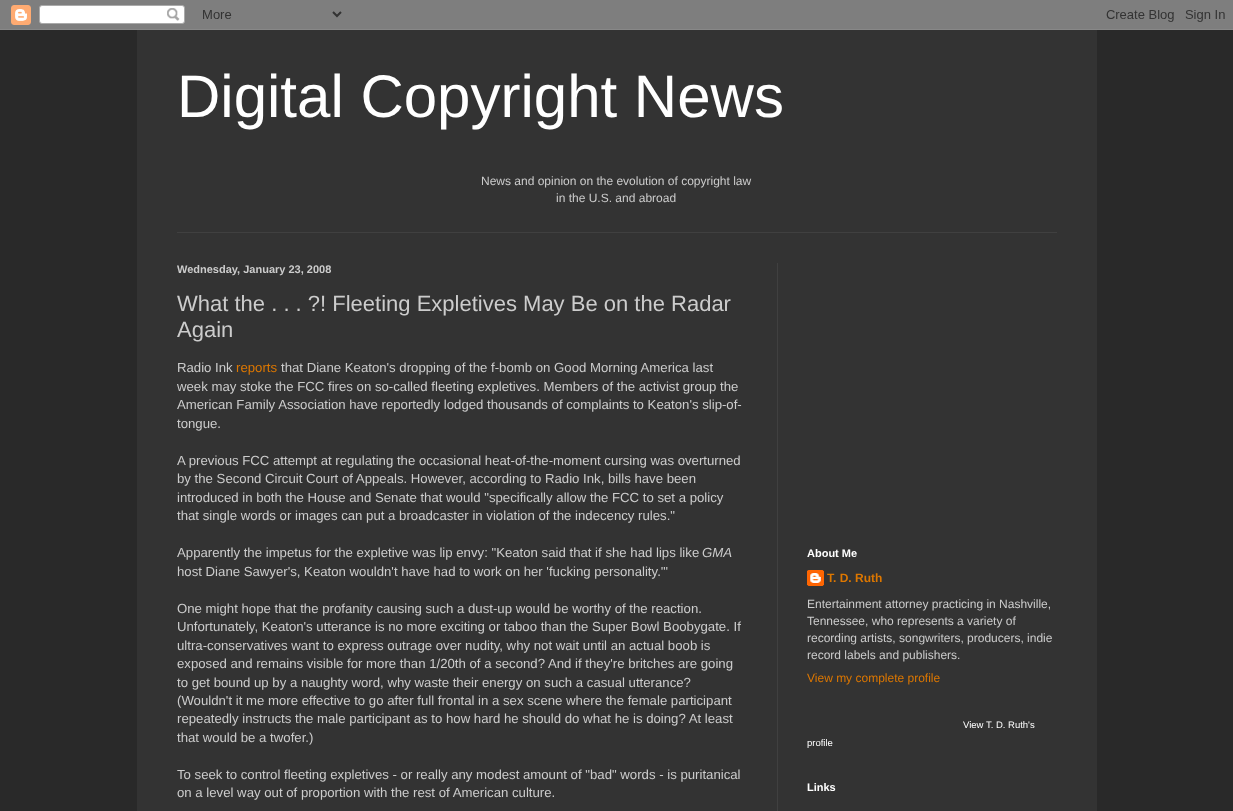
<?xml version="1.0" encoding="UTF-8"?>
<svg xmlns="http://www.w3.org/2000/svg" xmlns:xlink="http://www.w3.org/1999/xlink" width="1233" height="811">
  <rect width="100%" height="100%" fill="#292929" />
  <image x="0" y="0" width="1233" height="30" xlink:href="image1.png" />
  <rect x="137" y="30" width="960" height="781" fill="#333333" />
  <rect x="177" y="232" width="880" height="1" fill="#404040" />
  <rect x="777" y="263" width="1" height="548" fill="#404040" />
  <image x="807" y="570" width="17" height="16" xlink:href="image2.png" />
  <text x="177" y="117" style="font-family: Liberation Sans; font-size: 60px; fill: #ffffff">Digital Copyright News</text>
  <text x="481" y="185" style="font-family: Liberation Sans; font-size: 12px; fill: #cccccc">News and opinion on the evolution of copyright law</text>
  <text x="556" y="202" style="font-family: Liberation Sans; font-size: 12px; fill: #cccccc">in the U.S. and abroad</text>
  <text x="177" y="273" style="font-family: Liberation Sans; font-size: 11px; font-weight: bold; fill: #cccccc">Wednesday, January 23, 2008</text>
  <text x="177" y="311" style="font-family: Liberation Sans; font-size: 22px; fill: #cccccc">What the . . . ?! Fleeting Expletives May Be on the Radar</text>
  <text x="177" y="337" style="font-family: Liberation Sans; font-size: 22px; fill: #cccccc">Again</text>
  <text x="177" y="372" style="font-family: Liberation Sans; font-size: 13.2px; fill: #cccccc">Radio Ink</text>
  <text x="236" y="372" style="font-family: Liberation Sans; font-size: 13.2px; fill: #dd7700">reports</text>
  <text x="281" y="372" style="font-family: Liberation Sans; font-size: 13.2px; fill: #cccccc">that Diane Keaton's dropping of the f-bomb on Good Morning America last</text>
  <text x="177" y="391" style="font-family: Liberation Sans; font-size: 13.2px; fill: #cccccc">week may stoke the FCC fires on so-called fleeting expletives. Members of the activist group the</text>
  <text x="177" y="409" style="font-family: Liberation Sans; font-size: 13.2px; fill: #cccccc">American Family Association have reportedly lodged thousands of complaints to Keaton's slip-of-</text>
  <text x="177" y="428" style="font-family: Liberation Sans; font-size: 13.2px; fill: #cccccc">tongue.</text>
  <text x="177" y="465" style="font-family: Liberation Sans; font-size: 13.2px; fill: #cccccc">A previous FCC attempt at regulating the occasional heat-of-the-moment cursing was overturned</text>
  <text x="177" y="483" style="font-family: Liberation Sans; font-size: 13.2px; fill: #cccccc">by the Second Circuit Court of Appeals. However, according to Radio Ink, bills have been</text>
  <text x="177" y="502" style="font-family: Liberation Sans; font-size: 13.2px; fill: #cccccc">introduced in both the House and Senate that would "specifically allow the FCC to set a policy</text>
  <text x="177" y="520" style="font-family: Liberation Sans; font-size: 13.2px; fill: #cccccc">that single words or images can put a broadcaster in violation of the indecency rules."</text>
  <text x="177" y="557" style="font-family: Liberation Sans; font-size: 13.2px; fill: #cccccc">Apparently the impetus for the expletive was lip envy: "Keaton said that if she had lips like</text>
  <text x="702" y="557" style="font-family: Liberation Sans; font-size: 13.2px; font-style: italic; fill: #cccccc">GMA</text>
  <text x="177" y="576" style="font-family: Liberation Sans; font-size: 13.2px; fill: #cccccc">host Diane Sawyer's, Keaton wouldn't have had to work on her 'fucking personality.'"</text>
  <text x="177" y="613" style="font-family: Liberation Sans; font-size: 13.2px; fill: #cccccc">One might hope that the profanity causing such a dust-up would be worthy of the reaction.</text>
  <text x="177" y="631" style="font-family: Liberation Sans; font-size: 13.2px; fill: #cccccc">Unfortunately, Keaton's utterance is no more exciting or taboo than the Super Bowl Boobygate. If</text>
  <text x="177" y="650" style="font-family: Liberation Sans; font-size: 13.2px; fill: #cccccc">ultra-conservatives want to express outrage over nudity, why not wait until an actual boob is</text>
  <text x="177" y="668" style="font-family: Liberation Sans; font-size: 13.2px; fill: #cccccc">exposed and remains visible for more than 1/20th of a second? And if they're britches are going</text>
  <text x="177" y="687" style="font-family: Liberation Sans; font-size: 13.2px; fill: #cccccc">to get bound up by a naughty word, why waste their energy on such a casual utterance?</text>
  <text x="177" y="705" style="font-family: Liberation Sans; font-size: 13.2px; fill: #cccccc">(Wouldn't it me more effective to go after full frontal in a sex scene where the female participant</text>
  <text x="177" y="723" style="font-family: Liberation Sans; font-size: 13.2px; fill: #cccccc">repeatedly instructs the male participant as to how hard he should do what he is doing? At least</text>
  <text x="177" y="742" style="font-family: Liberation Sans; font-size: 13.2px; fill: #cccccc">that would be a twofer.)</text>
  <text x="177" y="779" style="font-family: Liberation Sans; font-size: 13.2px; fill: #cccccc">To seek to control fleeting expletives - or really any modest amount of "bad" words - is puritanical</text>
  <text x="177" y="797" style="font-family: Liberation Sans; font-size: 13.2px; fill: #cccccc">on a level way out of proportion with the rest of American culture.</text>
  <text x="807" y="557" style="font-family: Liberation Sans; font-size: 11px; font-weight: bold; fill: #ffffff">About Me</text>
  <text x="827" y="582" style="font-family: Liberation Sans; font-size: 12px; font-weight: bold; fill: #dd7700">T. D. Ruth</text>
  <text x="807" y="608" style="font-family: Liberation Sans; font-size: 12px; fill: #cccccc">Entertainment attorney practicing in Nashville,</text>
  <text x="807" y="625" style="font-family: Liberation Sans; font-size: 12px; fill: #cccccc">Tennessee, who represents a variety of</text>
  <text x="807" y="642" style="font-family: Liberation Sans; font-size: 12px; fill: #cccccc">recording artists, songwriters, producers, indie</text>
  <text x="807" y="659" style="font-family: Liberation Sans; font-size: 12px; fill: #cccccc">record labels and publishers.</text>
  <text x="807" y="682" style="font-family: Liberation Sans; font-size: 12px; fill: #dd7700">View my complete profile</text>
  <text x="963" y="728" style="font-family: Liberation Sans; font-size: 9.5px; fill: #ffffff">View T. D. Ruth's</text>
  <text x="807" y="746" style="font-family: Liberation Sans; font-size: 9.5px; fill: #ffffff">profile</text>
  <text x="807" y="791" style="font-family: Liberation Sans; font-size: 11px; font-weight: bold; fill: #ffffff">Links</text>
</svg>
